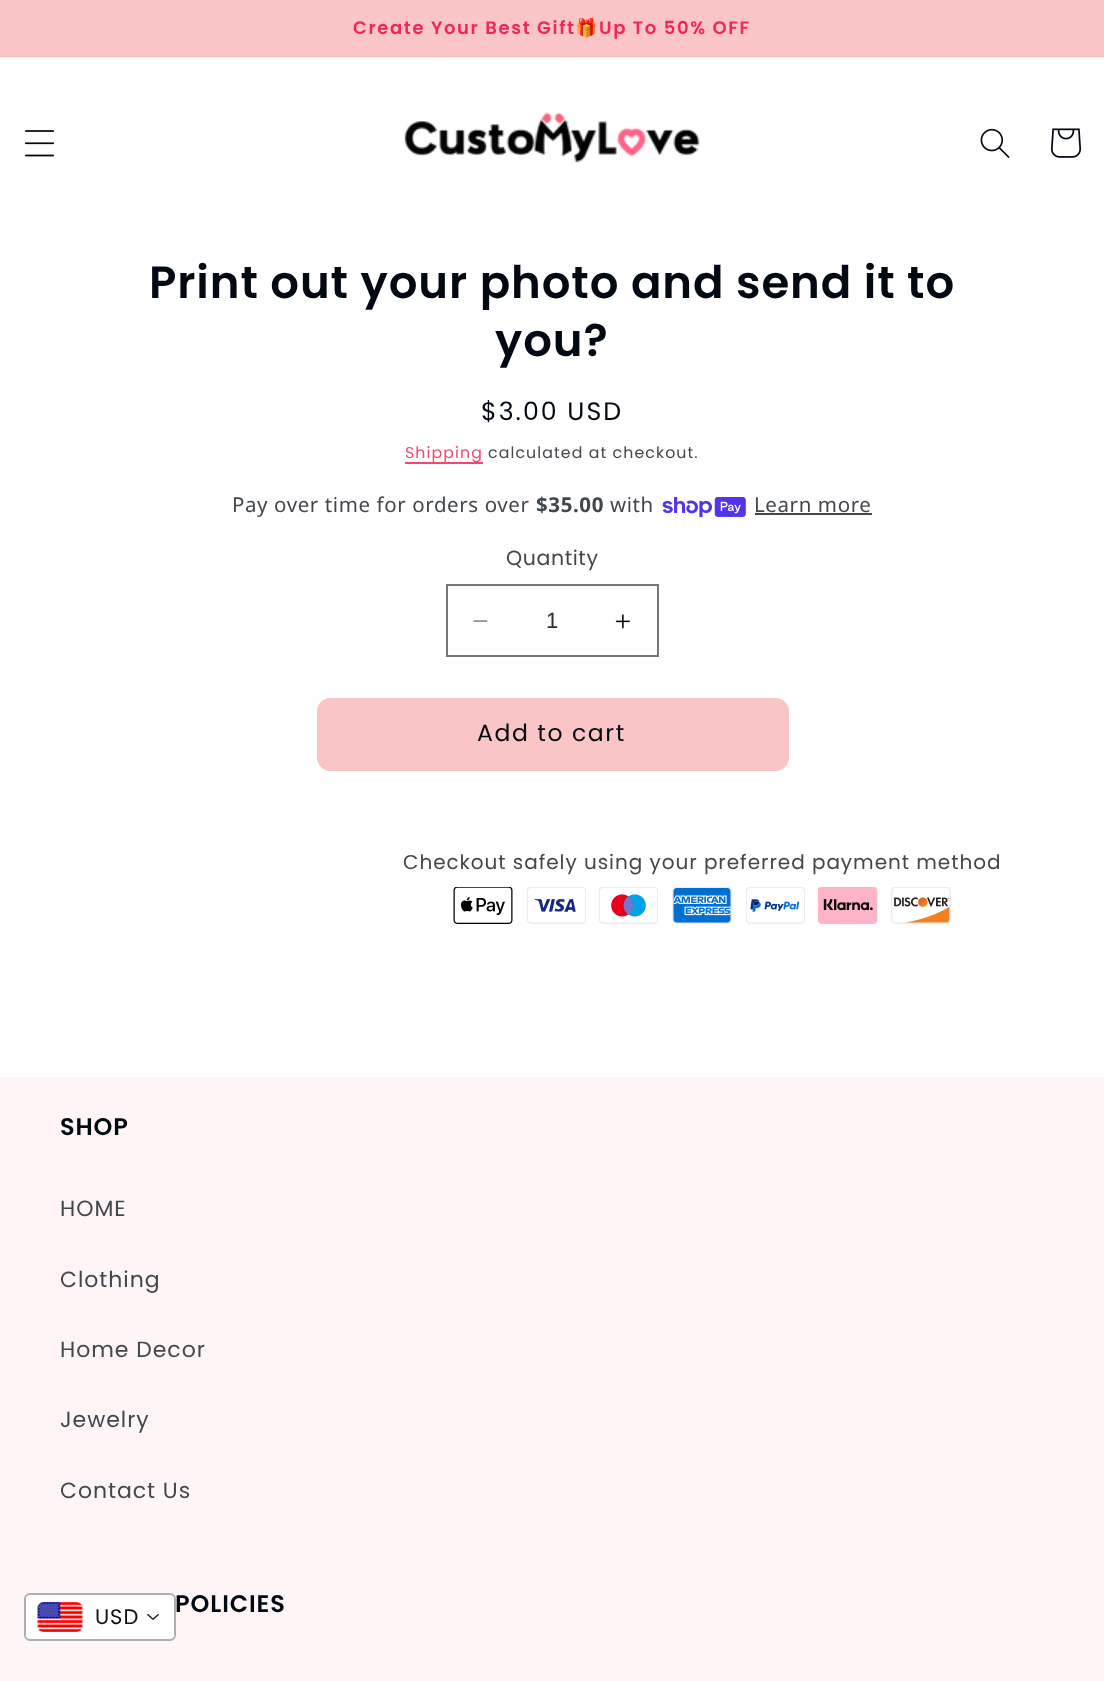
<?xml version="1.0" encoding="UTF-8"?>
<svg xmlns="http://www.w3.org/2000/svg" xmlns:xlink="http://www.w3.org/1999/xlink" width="1104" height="1681">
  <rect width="100%" height="100%" fill="#ffffff" />
  <rect y="57" width="1104" height="1" fill="#feeef1" />
  <rect width="1104" height="56" fill="#fac5c7" />
  <rect y="56" width="1104" height="1" fill="#f9b8be" />
  <image x="24" y="130" width="31" height="27" xlink:href="image1.png" />
  <image x="404" y="112" width="296" height="51" xlink:href="image2.png" />
  <image x="980" y="128" width="30" height="30" xlink:href="image3.png" />
  <image x="1051" y="128" width="31" height="30" xlink:href="image4.png" />
  <rect x="405" y="462" width="78" height="2" fill="#f3476f" />
  <image x="662" y="497" width="84" height="21" xlink:href="image5.png" />
  <rect x="755" y="513" width="117" height="2" fill="#41474d" />
  <image x="473" y="620" width="15" height="2" xlink:href="image6.png" />
  <image x="615" y="614" width="15" height="15" xlink:href="image7.png" />
  <rect x="447" y="585" width="211" height="71" fill="none" stroke="#74787d" stroke-width="2" />
  <rect x="317" y="698" width="472" height="73" rx="14" fill="#fac5c7" />
  <rect x="318" y="699" width="470" height="71" rx="13" fill="none" stroke="#fac5c7" stroke-width="2" />
  <image x="453" y="887" width="60" height="37" xlink:href="image8.png" />
  <image x="527" y="887" width="59" height="37" xlink:href="image9.png" />
  <image x="599" y="887" width="59" height="37" xlink:href="image10.png" />
  <image x="672" y="887" width="60" height="37" xlink:href="image11.png" />
  <image x="746" y="887" width="59" height="37" xlink:href="image12.png" />
  <image x="818" y="887" width="60" height="37" xlink:href="image13.png" />
  <image x="891" y="887" width="60" height="37" xlink:href="image14.png" />
  <rect y="1077" width="1104" height="604" fill="#fff5f6" />
  <rect x="25" y="1594" width="150" height="46" rx="5" fill="#ffffff" stroke="#aeaeae" stroke-width="2" />
  <image x="37" y="1602" width="46" height="30" xlink:href="image15.png" />
  <image x="147" y="1614" width="12" height="6" xlink:href="image16.png" />
  <text x="353" y="34" style="font-family: Poppins; font-size: 18px; font-weight: 600; letter-spacing: 1.6px; fill: #f12756">Create Your Best Gift</text>
  <text x="575" y="34" style="font-family: Noto Color Emoji; font-size: 18px; font-weight: bold; letter-spacing: 1.6px; fill: #f12756">🎁</text>
  <text x="599" y="34" style="font-family: Poppins; font-size: 18px; font-weight: 600; letter-spacing: 1.6px; fill: #f12756">Up To 50% OFF</text>
  <text x="149" y="298" style="font-family: Poppins; font-size: 45px; font-weight: 600; letter-spacing: 0.9px; fill: #020912">Print out your photo and send it to</text>
  <text x="495" y="356" style="font-family: Poppins; font-size: 45px; font-weight: 600; letter-spacing: 0.9px; fill: #020912">you?</text>
  <text x="481" y="420" style="font-family: Poppins; font-size: 25.25px; letter-spacing: 2px; fill: #020912">$3.00 USD</text>
  <text x="405" y="458" style="font-family: Poppins; font-size: 15.75px; letter-spacing: 1.1px; fill: #f3476f">Shipping</text>
  <text x="488" y="458" style="font-family: Poppins; font-size: 15.75px; letter-spacing: 1.1px; fill: #41474d">calculated at checkout.</text>
  <text x="232" y="512" style="font-family: Noto Sans; font-size: 20.5px; letter-spacing: 0.6px; fill: #41474d">Pay over time for orders over</text>
  <text x="536" y="512" style="font-family: Noto Sans; font-size: 20.5px; font-weight: bold; letter-spacing: 0.6px; fill: #41474d">$35.00</text>
  <text x="610" y="512" style="font-family: Noto Sans; font-size: 20.5px; letter-spacing: 0.6px; fill: #41474d">with</text>
  <text x="754" y="512" style="font-family: Noto Sans; font-size: 20.5px; letter-spacing: 0.6px; fill: #41474d">Learn more</text>
  <text x="506" y="565" style="font-family: Poppins; font-size: 20.5px; letter-spacing: 0.6px; fill: #41474d">Quantity</text>
  <text x="546" y="628" style="font-family: Liberation Sans; font-size: 22px; fill: #282e36">1</text>
  <text x="477" y="741" style="font-family: Poppins; font-size: 23.5px; letter-spacing: 1.6px; fill: #020912">Add to cart</text>
  <text x="403" y="869" style="font-family: Poppins; font-size: 20px; letter-spacing: 0.95px; fill: #41474d">Checkout safely using your preferred payment method</text>
  <text x="60" y="1135" style="font-family: Poppins; font-size: 24px; font-weight: 600; letter-spacing: 0.9px; fill: #020912">SHOP</text>
  <text x="60" y="1216" style="font-family: Poppins; font-size: 22px; letter-spacing: 0.95px; fill: #41474d">HOME</text>
  <text x="60" y="1287" style="font-family: Poppins; font-size: 22px; letter-spacing: 0.95px; fill: #41474d">Clothing</text>
  <text x="60" y="1357" style="font-family: Poppins; font-size: 22px; letter-spacing: 0.95px; fill: #41474d">Home Decor</text>
  <text x="60" y="1427" style="font-family: Poppins; font-size: 22px; letter-spacing: 0.95px; fill: #41474d">Jewelry</text>
  <text x="60" y="1498" style="font-family: Poppins; font-size: 22px; letter-spacing: 0.95px; fill: #41474d">Contact Us</text>
  <text x="175" y="1612" style="font-family: Poppins; font-size: 24px; font-weight: 600; letter-spacing: 0.9px; fill: #020912">POLICIES</text>
  <text x="95" y="1624" style="font-family: Poppins; font-size: 21px; letter-spacing: 0.95px; fill: #111111">USD</text>
</svg>
